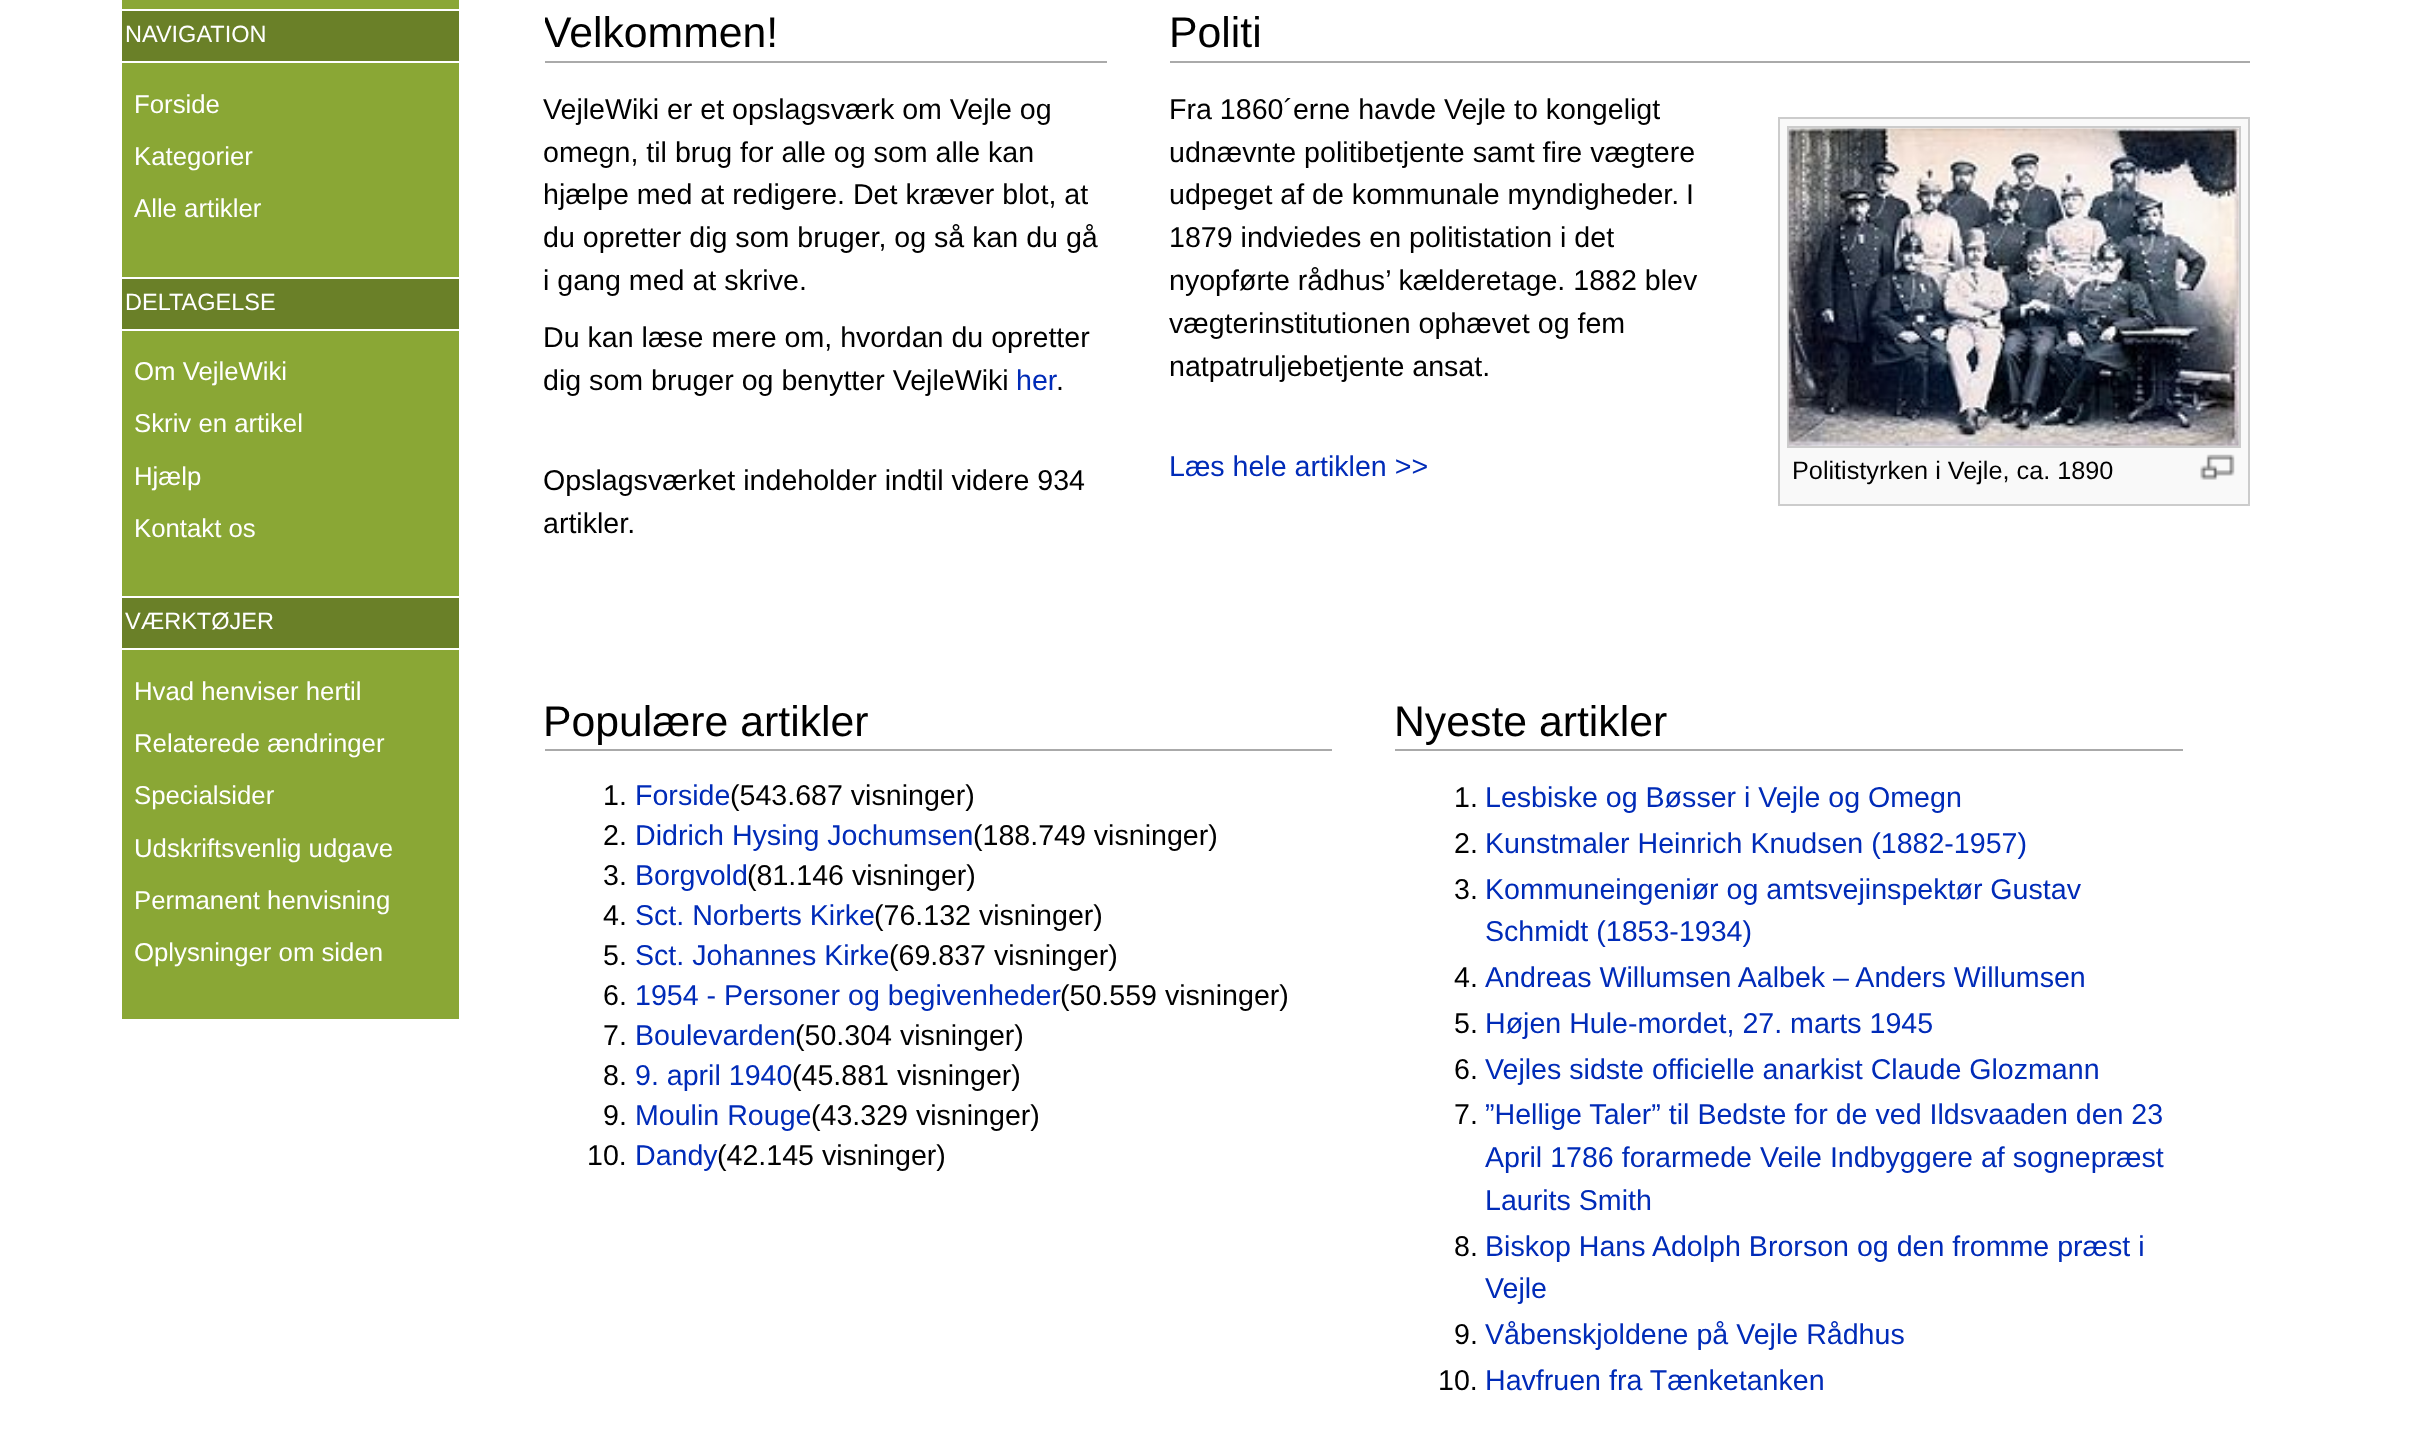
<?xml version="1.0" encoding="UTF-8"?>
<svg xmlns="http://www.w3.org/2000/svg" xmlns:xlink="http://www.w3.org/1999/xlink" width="2422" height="1453">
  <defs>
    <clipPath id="clip1"><rect x="545" width="562" height="61" /></clipPath>
  </defs>
  <rect width="100%" height="100%" fill="#ffffff" />
  <rect x="122" width="337" height="9" fill="#8aa735" />
  <rect x="122" y="63" width="337" height="214" fill="#8aa735" />
  <rect x="122" y="11" width="337" height="50" fill="#6a8028" />
  <rect x="122" y="331" width="337" height="265" fill="#8aa735" />
  <rect x="122" y="279" width="337" height="50" fill="#6a8028" />
  <rect x="122" y="650" width="337" height="369" fill="#8aa735" />
  <rect x="122" y="598" width="337" height="50" fill="#6a8028" />
  <rect x="545" y="61" width="562" height="2" fill="#aaaaaa" />
  <rect x="1170" y="61" width="1080" height="2" fill="#aaaaaa" />
  <rect x="1779" y="118" width="470" height="387" fill="#f9f9f9" stroke="#cccccc" stroke-width="2" />
  <rect x="1788" y="127" width="452" height="320" fill="none" stroke="#cccccc" stroke-width="2" />
  <image x="1788" y="128" width="451" height="318" xlink:href="image1.png" />
  <image x="2200" y="454" width="35" height="26" xlink:href="image2.png" />
  <rect x="545" y="749" width="787" height="2" fill="#aaaaaa" />
  <rect x="1395" y="749" width="788" height="2" fill="#aaaaaa" />
  <text x="125" y="42" style="font-family: Liberation Sans; font-size: 23.5px; fill: #ffffff">NAVIGATION</text>
  <text x="134" y="113" style="font-family: Liberation Sans; font-size: 25.75px; fill: #ffffff">Forside</text>
  <text x="134" y="165" style="font-family: Liberation Sans; font-size: 25.75px; fill: #ffffff">Kategorier</text>
  <text x="134" y="217" style="font-family: Liberation Sans; font-size: 25.75px; fill: #ffffff">Alle artikler</text>
  <text x="125" y="310" style="font-family: Liberation Sans; font-size: 23.5px; fill: #ffffff">DELTAGELSE</text>
  <text x="134" y="380" style="font-family: Liberation Sans; font-size: 25.75px; fill: #ffffff">Om VejleWiki</text>
  <text x="134" y="432" style="font-family: Liberation Sans; font-size: 25.75px; fill: #ffffff">Skriv en artikel</text>
  <text x="134" y="485" style="font-family: Liberation Sans; font-size: 25.75px; fill: #ffffff">Hjælp</text>
  <text x="134" y="537" style="font-family: Liberation Sans; font-size: 25.75px; fill: #ffffff">Kontakt os</text>
  <text x="125" y="629" style="font-family: Liberation Sans; font-size: 23.5px; fill: #ffffff">VÆRKTØJER</text>
  <text x="134" y="700" style="font-family: Liberation Sans; font-size: 25.75px; fill: #ffffff">Hvad henviser hertil</text>
  <text x="134" y="752" style="font-family: Liberation Sans; font-size: 25.75px; fill: #ffffff">Relaterede ændringer</text>
  <text x="134" y="804" style="font-family: Liberation Sans; font-size: 25.75px; fill: #ffffff">Specialsider</text>
  <text x="134" y="857" style="font-family: Liberation Sans; font-size: 25.75px; fill: #ffffff">Udskriftsvenlig udgave</text>
  <text x="134" y="909" style="font-family: Liberation Sans; font-size: 25.75px; fill: #ffffff">Permanent henvisning</text>
  <text x="134" y="961" style="font-family: Liberation Sans; font-size: 25.75px; fill: #ffffff">Oplysninger om siden</text>
  <g clip-path="url(#clip1)">
    <text x="543" y="47" style="font-family: Liberation Sans; font-size: 42.75px; fill: #000000">Velkommen!</text>
  </g>
  <text x="543" y="119" style="font-family: Liberation Sans; font-size: 28.6px; fill: #000000">VejleWiki er et opslagsværk om Vejle og</text>
  <text x="543" y="162" style="font-family: Liberation Sans; font-size: 28.6px; fill: #000000">omegn, til brug for alle og som alle kan</text>
  <text x="543" y="204" style="font-family: Liberation Sans; font-size: 28.6px; fill: #000000">hjælpe med at redigere. Det kræver blot, at</text>
  <text x="543" y="247" style="font-family: Liberation Sans; font-size: 28.6px; fill: #000000">du opretter dig som bruger, og så kan du gå</text>
  <text x="543" y="290" style="font-family: Liberation Sans; font-size: 28.6px; fill: #000000">i gang med at skrive.</text>
  <text x="543" y="347" style="font-family: Liberation Sans; font-size: 28.6px; fill: #000000">Du kan læse mere om, hvordan du opretter</text>
  <text x="543" y="390" style="font-family: Liberation Sans; font-size: 28.6px; fill: #000000">dig som bruger og benytter VejleWiki</text>
  <text x="1016" y="390" style="font-family: Liberation Sans; font-size: 28.6px; fill: #002bb8">her</text>
  <text x="1056" y="390" style="font-family: Liberation Sans; font-size: 28.6px; fill: #000000">.</text>
  <text x="543" y="490" style="font-family: Liberation Sans; font-size: 28.6px; fill: #000000">Opslagsværket indeholder indtil videre 934</text>
  <text x="543" y="533" style="font-family: Liberation Sans; font-size: 28.6px; fill: #000000">artikler.</text>
  <text x="1169" y="47" style="font-family: Liberation Sans; font-size: 42.75px; fill: #000000">Politi</text>
  <text x="1169" y="119" style="font-family: Liberation Sans; font-size: 28.6px; fill: #000000">Fra 1860´erne havde Vejle to kongeligt</text>
  <text x="1169" y="162" style="font-family: Liberation Sans; font-size: 28.6px; fill: #000000">udnævnte politibetjente samt fire vægtere</text>
  <text x="1169" y="204" style="font-family: Liberation Sans; font-size: 28.6px; fill: #000000">udpeget af de kommunale myndigheder.</text>
  <text x="1686" y="204" style="font-family: Liberation Sans; font-size: 28.6px; fill: #000000">I</text>
  <text x="1169" y="247" style="font-family: Liberation Sans; font-size: 28.6px; fill: #000000">1879 indviedes en politistation i det</text>
  <text x="1169" y="290" style="font-family: Liberation Sans; font-size: 28.6px; fill: #000000">nyopførte rådhus’ kælderetage. 1882 blev</text>
  <text x="1169" y="333" style="font-family: Liberation Sans; font-size: 28.6px; fill: #000000">vægterinstitutionen ophævet og fem</text>
  <text x="1169" y="376" style="font-family: Liberation Sans; font-size: 28.6px; fill: #000000">natpatruljebetjente ansat.</text>
  <text x="1169" y="476" style="font-family: Liberation Sans; font-size: 28.6px; fill: #002bb8">Læs hele artiklen &gt;&gt;</text>
  <text x="1792" y="479" style="font-family: Liberation Sans; font-size: 25.25px; fill: #000000">Politistyrken i Vejle, ca. 1890</text>
  <text x="543" y="736" style="font-family: Liberation Sans; font-size: 42.75px; fill: #000000">Populære artikler</text>
  <text x="603" y="805" style="font-family: Liberation Sans; font-size: 28.6px; fill: #000000">1.</text>
  <text x="635" y="805" style="font-family: Liberation Sans; font-size: 28.6px; fill: #002bb8">Forside</text>
  <text x="730" y="805" style="font-family: Liberation Sans; font-size: 28.6px; fill: #000000"> (543.687 visninger)</text>
  <text x="603" y="845" style="font-family: Liberation Sans; font-size: 28.6px; fill: #000000">2.</text>
  <text x="635" y="845" style="font-family: Liberation Sans; font-size: 28.6px; fill: #002bb8">Didrich Hysing Jochumsen</text>
  <text x="973" y="845" style="font-family: Liberation Sans; font-size: 28.6px; fill: #000000"> (188.749 visninger)</text>
  <text x="603" y="885" style="font-family: Liberation Sans; font-size: 28.6px; fill: #000000">3.</text>
  <text x="635" y="885" style="font-family: Liberation Sans; font-size: 28.6px; fill: #002bb8">Borgvold</text>
  <text x="747" y="885" style="font-family: Liberation Sans; font-size: 28.6px; fill: #000000"> (81.146 visninger)</text>
  <text x="603" y="925" style="font-family: Liberation Sans; font-size: 28.6px; fill: #000000">4.</text>
  <text x="635" y="925" style="font-family: Liberation Sans; font-size: 28.6px; fill: #002bb8">Sct. Norberts Kirke</text>
  <text x="874" y="925" style="font-family: Liberation Sans; font-size: 28.6px; fill: #000000"> (76.132 visninger)</text>
  <text x="603" y="965" style="font-family: Liberation Sans; font-size: 28.6px; fill: #000000">5.</text>
  <text x="635" y="965" style="font-family: Liberation Sans; font-size: 28.6px; fill: #002bb8">Sct. Johannes Kirke</text>
  <text x="889" y="965" style="font-family: Liberation Sans; font-size: 28.6px; fill: #000000"> (69.837 visninger)</text>
  <text x="603" y="1005" style="font-family: Liberation Sans; font-size: 28.6px; fill: #000000">6.</text>
  <text x="635" y="1005" style="font-family: Liberation Sans; font-size: 28.6px; fill: #002bb8">1954 - Personer og begivenheder</text>
  <text x="1060" y="1005" style="font-family: Liberation Sans; font-size: 28.6px; fill: #000000"> (50.559 visninger)</text>
  <text x="603" y="1045" style="font-family: Liberation Sans; font-size: 28.6px; fill: #000000">7.</text>
  <text x="635" y="1045" style="font-family: Liberation Sans; font-size: 28.6px; fill: #002bb8">Boulevarden</text>
  <text x="795" y="1045" style="font-family: Liberation Sans; font-size: 28.6px; fill: #000000"> (50.304 visninger)</text>
  <text x="603" y="1085" style="font-family: Liberation Sans; font-size: 28.6px; fill: #000000">8.</text>
  <text x="635" y="1085" style="font-family: Liberation Sans; font-size: 28.6px; fill: #002bb8">9. april 1940</text>
  <text x="792" y="1085" style="font-family: Liberation Sans; font-size: 28.6px; fill: #000000"> (45.881 visninger)</text>
  <text x="603" y="1125" style="font-family: Liberation Sans; font-size: 28.6px; fill: #000000">9.</text>
  <text x="635" y="1125" style="font-family: Liberation Sans; font-size: 28.6px; fill: #002bb8">Moulin Rouge</text>
  <text x="811" y="1125" style="font-family: Liberation Sans; font-size: 28.6px; fill: #000000"> (43.329 visninger)</text>
  <text x="587" y="1165" style="font-family: Liberation Sans; font-size: 28.6px; fill: #000000">10.</text>
  <text x="635" y="1165" style="font-family: Liberation Sans; font-size: 28.6px; fill: #002bb8">Dandy</text>
  <text x="717" y="1165" style="font-family: Liberation Sans; font-size: 28.6px; fill: #000000"> (42.145 visninger)</text>
  <text x="1394" y="736" style="font-family: Liberation Sans; font-size: 42.75px; fill: #000000">Nyeste artikler</text>
  <text x="1454" y="807" style="font-family: Liberation Sans; font-size: 28.6px; fill: #000000">1.</text>
  <text x="1485" y="807" style="font-family: Liberation Sans; font-size: 28.6px; fill: #002bb8">Lesbiske og Bøsser i Vejle og Omegn</text>
  <text x="1454" y="853" style="font-family: Liberation Sans; font-size: 28.6px; fill: #000000">2.</text>
  <text x="1485" y="853" style="font-family: Liberation Sans; font-size: 28.6px; fill: #002bb8">Kunstmaler Heinrich Knudsen (1882-1957)</text>
  <text x="1454" y="899" style="font-family: Liberation Sans; font-size: 28.6px; fill: #000000">3.</text>
  <text x="1485" y="899" style="font-family: Liberation Sans; font-size: 28.6px; fill: #002bb8">Kommuneingeniør og amtsvejinspektør Gustav</text>
  <text x="1485" y="941" style="font-family: Liberation Sans; font-size: 28.6px; fill: #002bb8">Schmidt (1853-1934)</text>
  <text x="1454" y="987" style="font-family: Liberation Sans; font-size: 28.6px; fill: #000000">4.</text>
  <text x="1485" y="987" style="font-family: Liberation Sans; font-size: 28.6px; fill: #002bb8">Andreas Willumsen Aalbek – Anders Willumsen</text>
  <text x="1454" y="1033" style="font-family: Liberation Sans; font-size: 28.6px; fill: #000000">5.</text>
  <text x="1485" y="1033" style="font-family: Liberation Sans; font-size: 28.6px; fill: #002bb8">Højen Hule-mordet, 27. marts 1945</text>
  <text x="1454" y="1079" style="font-family: Liberation Sans; font-size: 28.6px; fill: #000000">6.</text>
  <text x="1485" y="1079" style="font-family: Liberation Sans; font-size: 28.6px; fill: #002bb8">Vejles sidste officielle anarkist Claude Glozmann</text>
  <text x="1454" y="1124" style="font-family: Liberation Sans; font-size: 28.6px; fill: #000000">7.</text>
  <text x="1485" y="1124" style="font-family: Liberation Sans; font-size: 28.6px; fill: #002bb8">”Hellige Taler” til Bedste for de ved Ildsvaaden den 23</text>
  <text x="1485" y="1167" style="font-family: Liberation Sans; font-size: 28.6px; fill: #002bb8">April 1786 forarmede Veile Indbyggere af sognepræst</text>
  <text x="1485" y="1210" style="font-family: Liberation Sans; font-size: 28.6px; fill: #002bb8">Laurits Smith</text>
  <text x="1454" y="1256" style="font-family: Liberation Sans; font-size: 28.6px; fill: #000000">8.</text>
  <text x="1485" y="1256" style="font-family: Liberation Sans; font-size: 28.6px; fill: #002bb8">Biskop Hans Adolph Brorson og den fromme præst i</text>
  <text x="1485" y="1298" style="font-family: Liberation Sans; font-size: 28.6px; fill: #002bb8">Vejle</text>
  <text x="1454" y="1344" style="font-family: Liberation Sans; font-size: 28.6px; fill: #000000">9.</text>
  <text x="1485" y="1344" style="font-family: Liberation Sans; font-size: 28.6px; fill: #002bb8">Våbenskjoldene på Vejle Rådhus</text>
  <text x="1438" y="1390" style="font-family: Liberation Sans; font-size: 28.6px; fill: #000000">10.</text>
  <text x="1485" y="1390" style="font-family: Liberation Sans; font-size: 28.6px; fill: #002bb8">Havfruen fra Tænketanken</text>
</svg>
